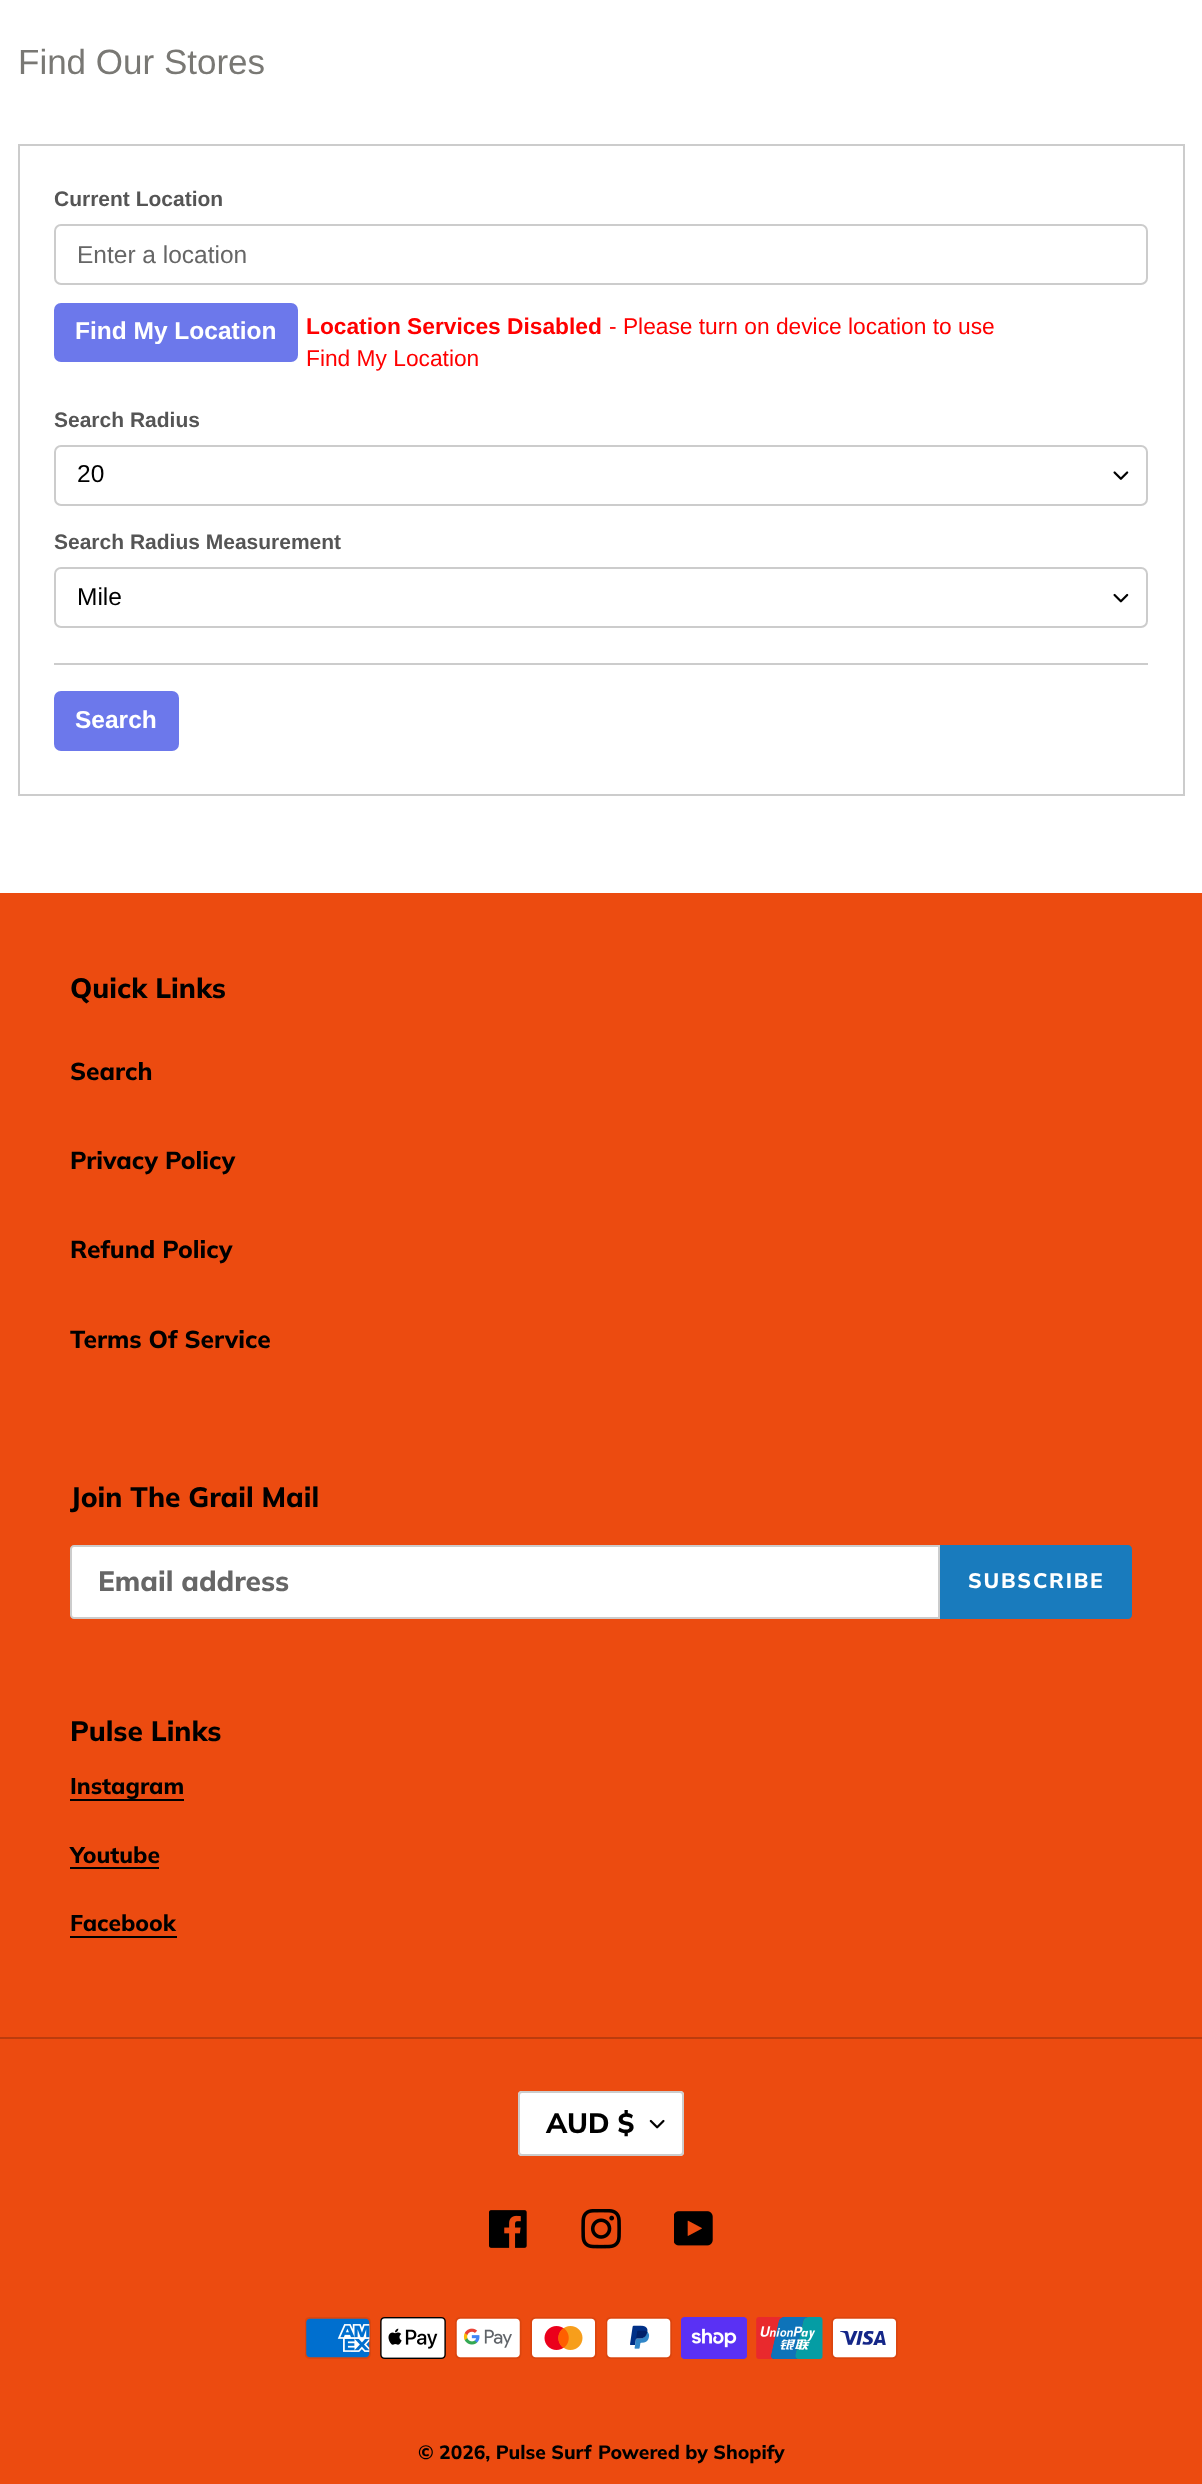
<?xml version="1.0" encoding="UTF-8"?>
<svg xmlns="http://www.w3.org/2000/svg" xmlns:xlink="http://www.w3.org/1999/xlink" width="1202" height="2484">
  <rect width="100%" height="100%" fill="#ffffff" />
  <rect x="19" y="145" width="1165" height="650" fill="none" stroke="#cccccc" stroke-width="2" />
  <rect x="55" y="225" width="1092" height="59" rx="6" fill="none" stroke="#cccccc" stroke-width="2" />
  <rect x="54" y="303" width="244" height="59" rx="7" fill="#6c78eb" />
  <image x="1113" y="471" width="16" height="9" xlink:href="image1.png" />
  <rect x="55" y="446" width="1092" height="59" rx="6" fill="none" stroke="#cccccc" stroke-width="2" />
  <image x="1113" y="593" width="16" height="10" xlink:href="image2.png" />
  <rect x="55" y="568" width="1092" height="59" rx="6" fill="none" stroke="#cccccc" stroke-width="2" />
  <rect x="54" y="663" width="1094" height="2" fill="#cccccc" />
  <rect x="54" y="691" width="125" height="60" rx="7" fill="#6c78eb" />
  <rect y="893" width="1202" height="1591" fill="#ec4b10" />
  <path d="M 74 1546 h 865 v 72 h -865 c -1.5 0 -3 -1.5 -3 -3 v -66 c 0 -1.5 1.5 -3 3 -3 z" fill="#ffffff" stroke="#cccccc" stroke-width="2" />
  <path d="M 940 1545 h 188 c 2 0 4 2 4 4 v 66 c 0 2 -2 4 -4 4 h -188 z" fill="#197bbd" />
  <rect x="70" y="1799" width="114" height="2" fill="#000000" />
  <rect x="70" y="1867" width="89" height="2" fill="#000000" />
  <rect x="70" y="1936" width="107" height="2" fill="#000000" />
  <rect y="2037" width="1202" height="2" fill="#bc3c0d" />
  <rect x="518" y="2091" width="166" height="65" rx="4" fill="#ffffff" />
  <image x="649" y="2119" width="16" height="10" xlink:href="image3.png" />
  <rect x="519" y="2092" width="164" height="63" rx="3" fill="none" stroke="#cccccc" stroke-width="2" />
  <image x="489" y="2210" width="38" height="38" xlink:href="image4.png" />
  <image x="581" y="2209" width="40" height="40" xlink:href="image5.png" />
  <image x="674" y="2211" width="39" height="35" xlink:href="image6.png" />
  <image x="305" y="2317" width="66" height="42" xlink:href="image7.png" />
  <image x="380" y="2317" width="66" height="42" xlink:href="image8.png" />
  <image x="455" y="2317" width="67" height="42" xlink:href="image9.png" />
  <image x="530" y="2317" width="67" height="42" xlink:href="image10.png" />
  <image x="606" y="2317" width="66" height="42" xlink:href="image11.png" />
  <image x="681" y="2317" width="66" height="42" xlink:href="image12.png" />
  <image x="756" y="2317" width="67" height="42" xlink:href="image13.png" />
  <image x="831" y="2317" width="67" height="42" xlink:href="image14.png" />
  <text x="18" y="74" style="font-family: Liberation Sans; font-size: 35px; fill: #797874">Find Our Stores</text>
  <text x="54" y="206" style="font-family: Liberation Sans; font-size: 21px; font-weight: bold; fill: #555555">Current Location</text>
  <text x="77" y="263" style="font-family: Liberation Sans; font-size: 24.5px; fill: #666666">Enter a location</text>
  <text x="75" y="339" style="font-family: Liberation Sans; font-size: 24.5px; font-weight: bold; fill: #ffffff">Find My Location</text>
  <text x="306" y="334" style="font-family: Liberation Sans; font-size: 22.75px; font-weight: bold; fill: #ff0000">Location Services Disabled</text>
  <text x="609" y="334" style="font-family: Liberation Sans; font-size: 22.75px; fill: #ff0000">- Please turn on device location to use</text>
  <text x="306" y="366" style="font-family: Liberation Sans; font-size: 22.75px; fill: #ff0000">Find My Location</text>
  <text x="54" y="427" style="font-family: Liberation Sans; font-size: 21px; font-weight: bold; fill: #555555">Search Radius</text>
  <text x="77" y="482" style="font-family: Liberation Sans; font-size: 24.5px; fill: #000000">20</text>
  <text x="54" y="549" style="font-family: Liberation Sans; font-size: 21px; font-weight: bold; fill: #555555">Search Radius Measurement</text>
  <text x="77" y="605" style="font-family: Liberation Sans; font-size: 24.5px; fill: #000000">Mile</text>
  <text x="75" y="728" style="font-family: Liberation Sans; font-size: 24.5px; font-weight: bold; fill: #ffffff">Search</text>
  <text x="70" y="998" style="font-family: Muli; font-size: 28px; font-weight: 800; fill: #000000">Quick Links</text>
  <text x="70" y="1080" style="font-family: Muli; font-size: 24.5px; font-weight: 800; fill: #000000">Search</text>
  <text x="70" y="1169" style="font-family: Muli; font-size: 24.5px; font-weight: 800; fill: #000000">Privacy Policy</text>
  <text x="70" y="1258" style="font-family: Muli; font-size: 24.5px; font-weight: 800; fill: #000000">Refund Policy</text>
  <text x="70" y="1348" style="font-family: Muli; font-size: 24.5px; font-weight: 800; fill: #000000">Terms Of Service</text>
  <text x="70" y="1507" style="font-family: Muli; font-size: 28px; font-weight: 800; fill: #000000">Join The Grail Mail</text>
  <text x="98" y="1591" style="font-family: Muli; font-size: 28px; font-weight: 800; fill: #666666">Email address</text>
  <text x="968" y="1588" style="font-family: Muli; font-size: 21px; font-weight: 800; letter-spacing: 1.75px; fill: #ffffff">SUBSCRIBE</text>
  <text x="70" y="1741" style="font-family: Muli; font-size: 28px; font-weight: 800; fill: #000000">Pulse Links</text>
  <text x="70" y="1794" style="font-family: Muli; font-size: 22.75px; font-weight: 800; fill: #000000">Instagram</text>
  <text x="70" y="1863" style="font-family: Muli; font-size: 22.75px; font-weight: 800; fill: #000000">Youtube</text>
  <text x="70" y="1931" style="font-family: Muli; font-size: 22.75px; font-weight: 800; fill: #000000">Facebook</text>
  <text x="546" y="2133" style="font-family: Muli; font-size: 28px; font-weight: 800; fill: #000000">AUD $</text>
  <text x="418" y="2459" style="font-family: Muli; font-size: 19.25px; font-weight: 800; fill: #000000">© 2026, Pulse Surf</text>
  <text x="598" y="2459" style="font-family: Muli; font-size: 19.25px; font-weight: 800; fill: #000000">Powered by Shopify</text>
</svg>
